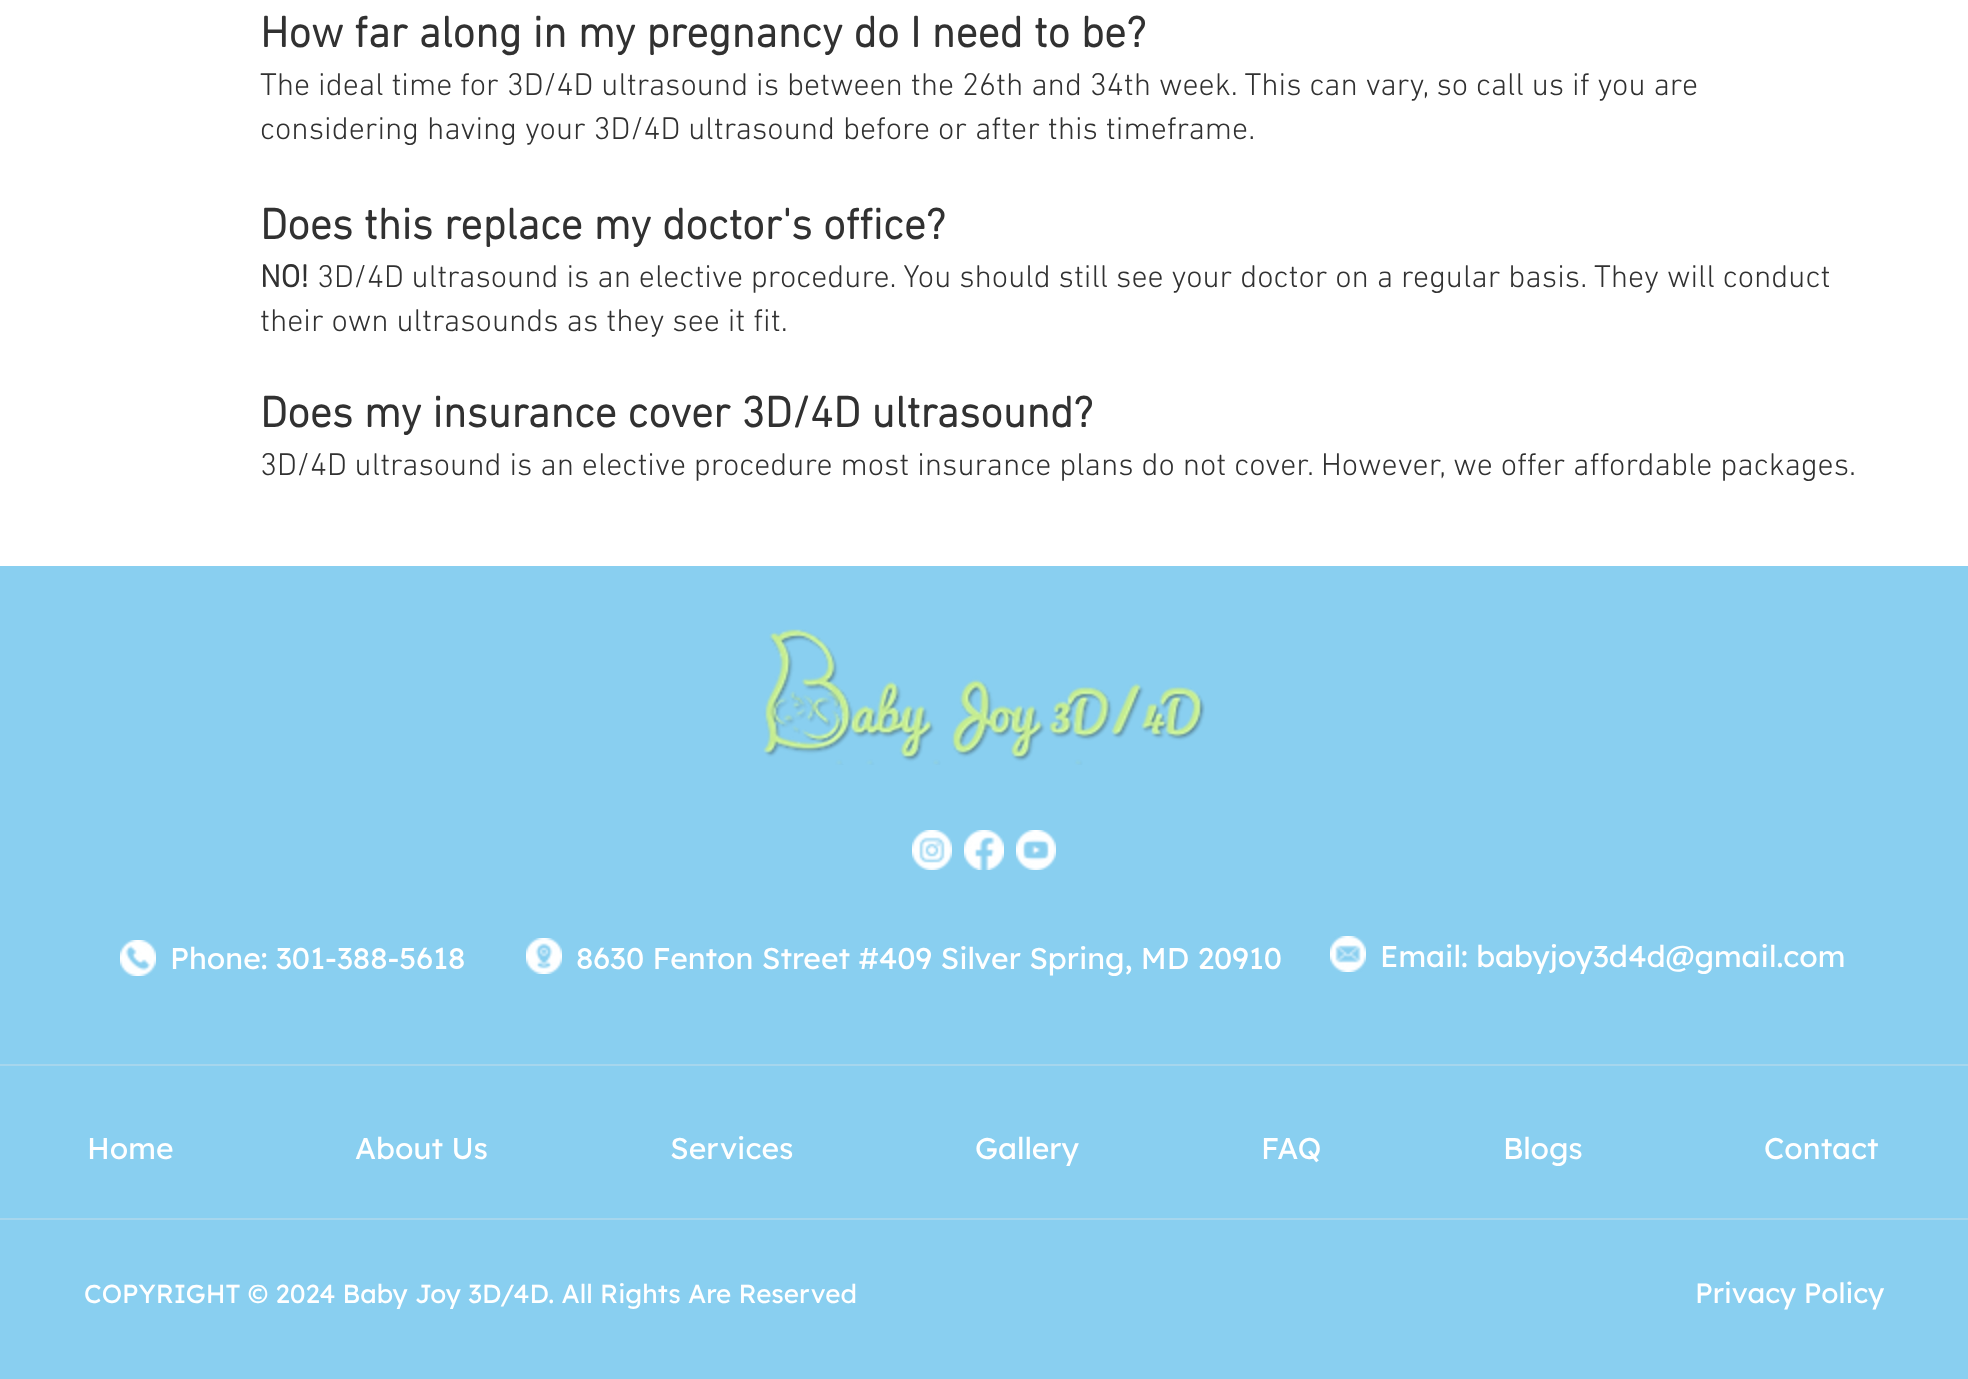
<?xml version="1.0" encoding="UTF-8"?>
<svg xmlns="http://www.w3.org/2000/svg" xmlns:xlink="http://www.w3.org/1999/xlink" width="1968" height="1379">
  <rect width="100%" height="100%" fill="#ffffff" />
  <rect y="566" width="1968" height="813" fill="#89cff0" />
  <image x="763" y="629" width="442" height="136" xlink:href="image1.png" />
  <image x="912" y="830" width="40" height="40" xlink:href="image2.png" />
  <image x="964" y="830" width="40" height="40" xlink:href="image3.png" />
  <image x="1016" y="830" width="40" height="40" xlink:href="image4.png" />
  <image x="120" y="940" width="36" height="36" xlink:href="image5.png" />
  <image x="526" y="938" width="36" height="36" xlink:href="image6.png" />
  <image x="1330" y="936" width="36" height="36" xlink:href="image7.png" />
  <rect y="1064" width="1968" height="2" fill="#a6d6ed" />
  <rect y="1218" width="1968" height="2" fill="#a6d6ed" />
  <text x="260" y="47" style="font-family: 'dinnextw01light'; font-size: 44px; font-weight: bold; fill: #313131">How far along in my pregnancy do I need to be?</text>
  <text x="260" y="95" style="font-family: 'dinnextw01light'; font-size: 32px; font-weight: 300; fill: #313131">The ideal time for 3D/4D ultrasound is between the 26th and 34th week. This can vary, so call us if you are</text>
  <text x="260" y="139" style="font-family: 'dinnextw01light'; font-size: 32px; font-weight: 300; fill: #313131">considering having your 3D/4D ultrasound before or after this timeframe.</text>
  <text x="260" y="239" style="font-family: 'dinnextw01light'; font-size: 44px; font-weight: bold; fill: #313131">Does this replace my doctor's office?</text>
  <text x="260" y="287" style="font-family: 'dinnextw01light'; font-size: 32px; font-weight: bold; fill: #313131">NO!</text>
  <text x="317" y="287" style="font-family: 'dinnextw01light'; font-size: 32px; font-weight: 300; fill: #313131">3D/4D ultrasound is an elective procedure. You should still see your doctor on a regular basis. They will conduct</text>
  <text x="260" y="331" style="font-family: 'dinnextw01light'; font-size: 32px; font-weight: 300; fill: #313131">their own ultrasounds as they see it fit.</text>
  <text x="260" y="427" style="font-family: 'dinnextw01light'; font-size: 44px; font-weight: bold; fill: #313131">Does my insurance cover 3D/4D ultrasound?</text>
  <text x="260" y="475" style="font-family: 'dinnextw01light'; font-size: 32px; font-weight: 300; fill: #313131">3D/4D ultrasound is an elective procedure most insurance plans do not cover. However, we offer affordable packages.</text>
  <text x="170" y="969" style="font-family: Lexend; font-size: 30px; fill: #ffffff">Phone: 301-388-5618</text>
  <text x="576" y="969" style="font-family: Lexend; font-size: 30px; fill: #ffffff">8630 Fenton Street #409 Silver Spring, MD 20910</text>
  <text x="1380" y="967" style="font-family: Lexend; font-size: 30px; fill: #ffffff">Email: babyjoy3d4d@gmail.com</text>
  <text x="87" y="1159" style="font-family: Lexend; font-size: 30px; fill: #ffffff">Home</text>
  <text x="355" y="1159" style="font-family: Lexend; font-size: 30px; fill: #ffffff">About Us</text>
  <text x="670" y="1159" style="font-family: Lexend; font-size: 30px; fill: #ffffff">Services</text>
  <text x="975" y="1159" style="font-family: Lexend; font-size: 30px; fill: #ffffff">Gallery</text>
  <text x="1261" y="1159" style="font-family: Lexend; font-size: 30px; fill: #ffffff">FAQ</text>
  <text x="1503" y="1159" style="font-family: Lexend; font-size: 30px; fill: #ffffff">Blogs</text>
  <text x="1764" y="1159" style="font-family: Lexend; font-size: 30px; fill: #ffffff">Contact</text>
  <text x="84" y="1303" style="font-family: Lexend; font-size: 26px; fill: #ffffff">COPYRIGHT © 2024 Baby Joy 3D/4D. All Rights Are Reserved</text>
  <text x="1695" y="1303" style="font-family: Lexend; font-size: 28px; fill: #ffffff">Privacy Policy</text>
</svg>
